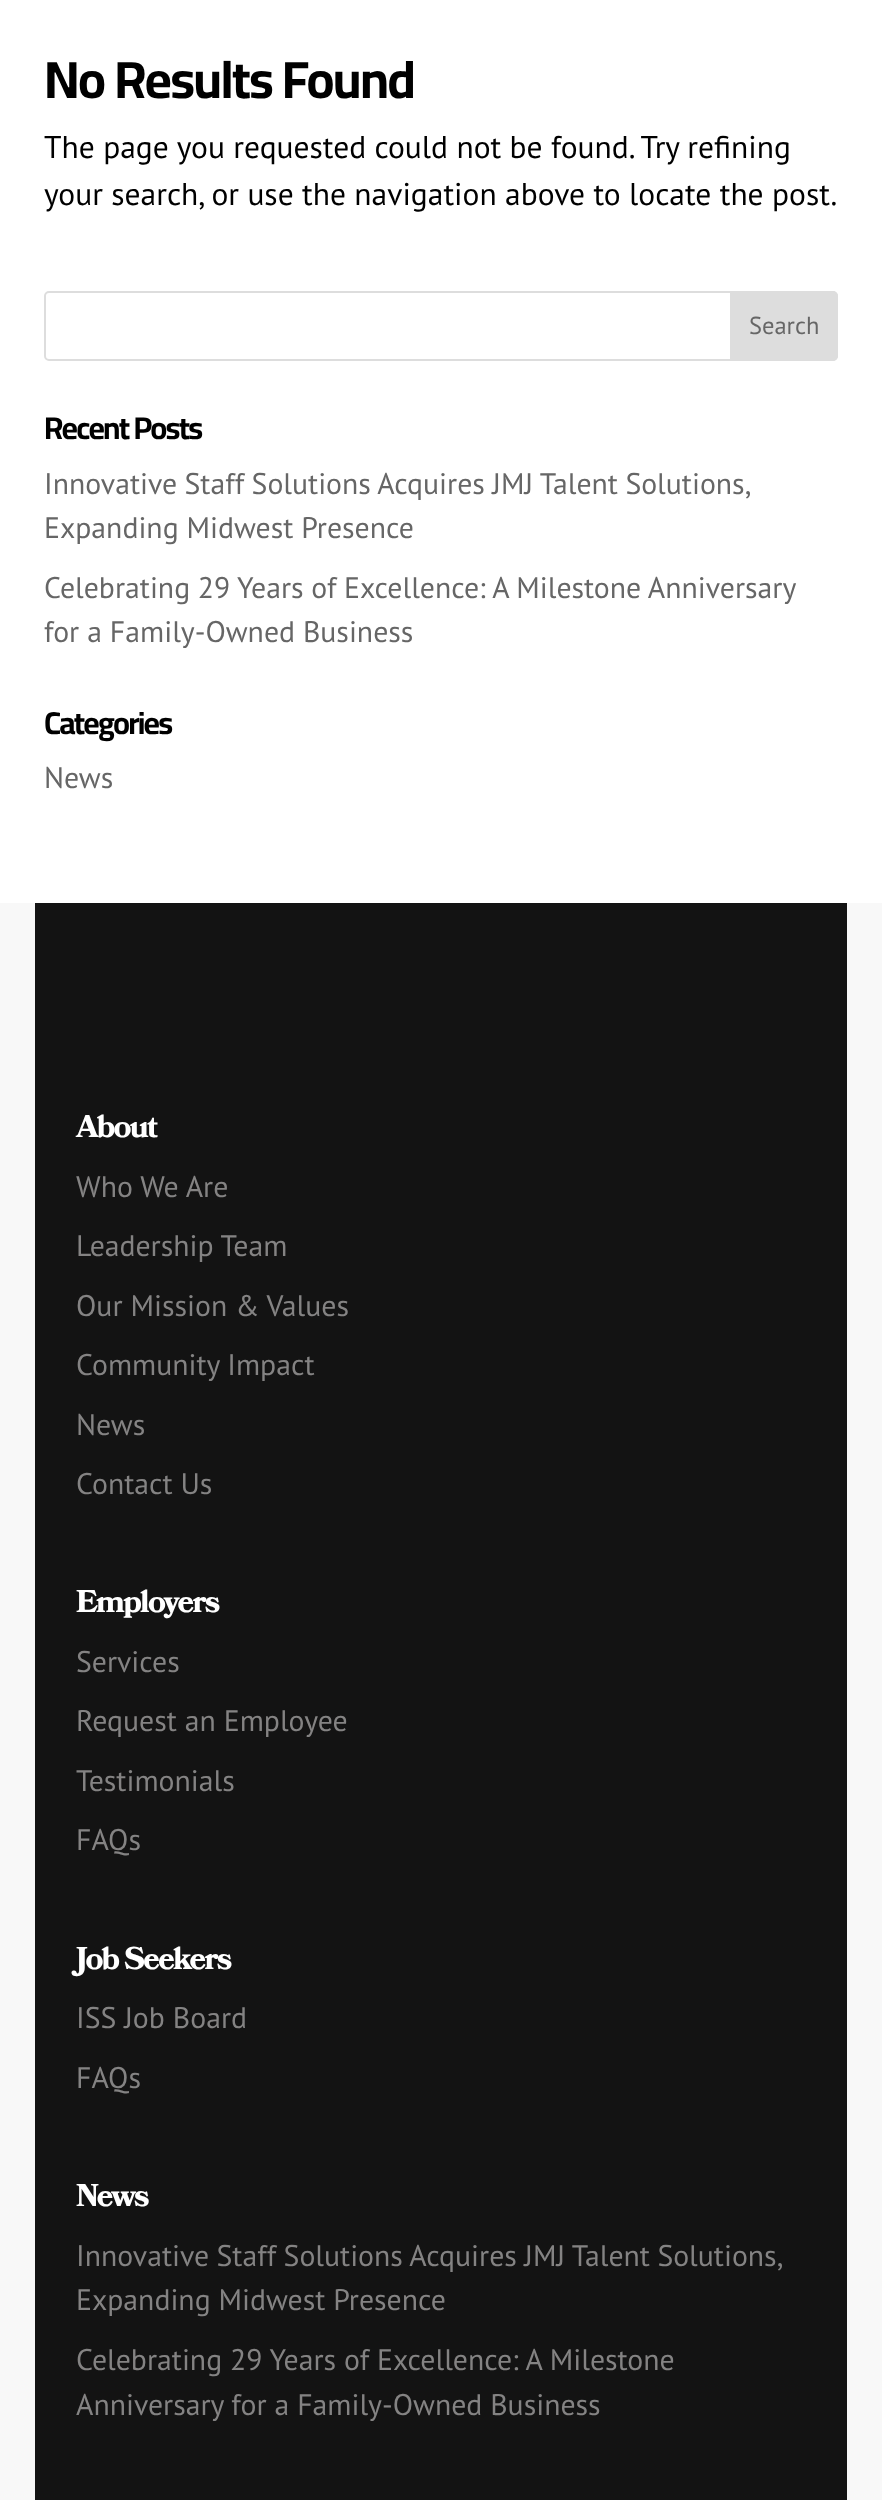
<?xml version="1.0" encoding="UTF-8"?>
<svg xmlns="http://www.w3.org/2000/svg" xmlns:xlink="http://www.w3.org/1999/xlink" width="882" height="2500">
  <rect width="100%" height="100%" fill="#f8f8f8" />
  <rect width="882" height="903" fill="#ffffff" />
  <rect x="45" y="292" width="792" height="68" rx="4" fill="none" stroke="#dddddd" stroke-width="2" />
  <path d="M 731 292 h 102 c 2 0 4 2 4 4 v 60 c 0 2 -2 4 -4 4 h -102 z" fill="#dddddd" stroke="#dddddd" stroke-width="2" />
  <rect x="35" y="903" width="812" height="1597" fill="#131313" />
  <text x="44" y="98" style="font-family: Cairo; font-size: 52.5px; font-weight: bold; letter-spacing: -1.75px; fill: #000000">No Results Found</text>
  <text x="44" y="158" style="font-family: PT Sans; font-size: 31.5px; fill: #000000">The page you requested could not be found. Try refining</text>
  <text x="44" y="205" style="font-family: PT Sans; font-size: 31.5px; fill: #000000">your search, or use the navigation above to locate the post.</text>
  <text x="749" y="334" style="font-family: PT Sans; font-size: 24.5px; fill: #666666">Search</text>
  <text x="44" y="439" style="font-family: Cairo; font-size: 31.5px; font-weight: bold; letter-spacing: -1.75px; fill: #000000">Recent Posts</text>
  <text x="44" y="494" word-spacing="-0.5" style="font-family: PT Sans; font-size: 29.75px; fill: #666666">Innovative Staff Solutions Acquires JMJ Talent Solutions,</text>
  <text x="44" y="538" style="font-family: PT Sans; font-size: 29.75px; fill: #666666">Expanding Midwest Presence</text>
  <text x="44" y="598" word-spacing="-0.25" style="font-family: PT Sans; font-size: 29.75px; fill: #666666">Celebrating 29 Years of Excellence: A Milestone Anniversary</text>
  <text x="44" y="642" style="font-family: PT Sans; font-size: 29.75px; fill: #666666">for a Family-Owned Business</text>
  <text x="44" y="734" style="font-family: Cairo; font-size: 31.5px; font-weight: bold; letter-spacing: -1.75px; fill: #000000">Categories</text>
  <text x="44" y="788" style="font-family: PT Sans; font-size: 29.75px; fill: #666666">News</text>
  <text x="76" y="1137" style="font-family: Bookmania; font-size: 31.5px; font-weight: bold; letter-spacing: -1.75px; fill: #ffffff">About</text>
  <text x="76" y="1197" style="font-family: PT Sans; font-size: 29.75px; fill: #848383">Who We Are</text>
  <text x="76" y="1256" style="font-family: PT Sans; font-size: 29.75px; fill: #848383">Leadership Team</text>
  <text x="76" y="1316" style="font-family: PT Sans; font-size: 29.75px; fill: #848383">Our Mission &amp; Values</text>
  <text x="76" y="1375" style="font-family: PT Sans; font-size: 29.75px; fill: #848383">Community Impact</text>
  <text x="76" y="1435" style="font-family: PT Sans; font-size: 29.75px; fill: #848383">News</text>
  <text x="76" y="1494" style="font-family: PT Sans; font-size: 29.75px; fill: #848383">Contact Us</text>
  <text x="76" y="1612" style="font-family: Bookmania; font-size: 31.5px; font-weight: bold; letter-spacing: -1.75px; fill: #ffffff">Employers</text>
  <text x="76" y="1672" style="font-family: PT Sans; font-size: 29.75px; fill: #848383">Services</text>
  <text x="76" y="1731" style="font-family: PT Sans; font-size: 29.75px; fill: #848383">Request an Employee</text>
  <text x="76" y="1791" style="font-family: PT Sans; font-size: 29.75px; fill: #848383">Testimonials</text>
  <text x="76" y="1850" style="font-family: PT Sans; font-size: 29.75px; fill: #848383">FAQs</text>
  <text x="76" y="1969" style="font-family: Bookmania; font-size: 31.5px; font-weight: bold; letter-spacing: -1.75px; fill: #ffffff">Job Seekers</text>
  <text x="76" y="2028" style="font-family: PT Sans; font-size: 29.75px; fill: #848383">ISS Job Board</text>
  <text x="76" y="2088" style="font-family: PT Sans; font-size: 29.75px; fill: #848383">FAQs</text>
  <text x="76" y="2206" style="font-family: Bookmania; font-size: 31.5px; font-weight: bold; letter-spacing: -1.75px; fill: #ffffff">News</text>
  <text x="76" y="2266" word-spacing="-0.5" style="font-family: PT Sans; font-size: 29.75px; fill: #848383">Innovative Staff Solutions Acquires JMJ Talent Solutions,</text>
  <text x="76" y="2310" style="font-family: PT Sans; font-size: 29.75px; fill: #848383">Expanding Midwest Presence</text>
  <text x="76" y="2370" style="font-family: PT Sans; font-size: 29.75px; fill: #848383">Celebrating 29 Years of Excellence: A Milestone</text>
  <text x="76" y="2415" style="font-family: PT Sans; font-size: 29.75px; fill: #848383">Anniversary for a Family-Owned Business</text>
</svg>
